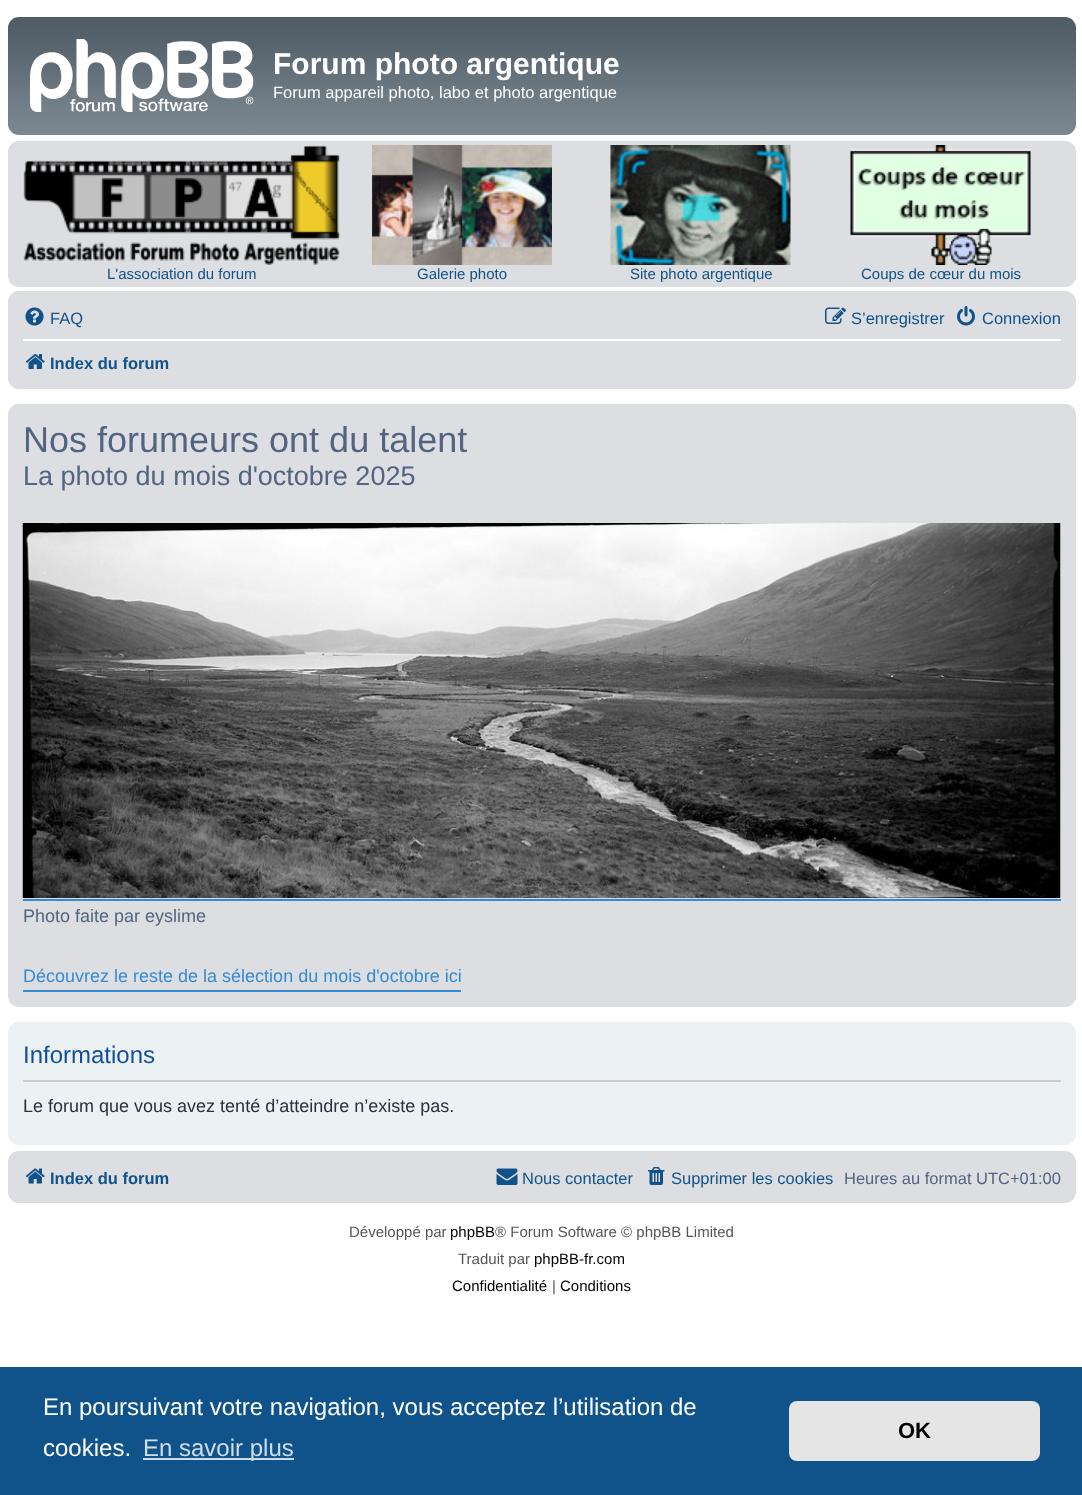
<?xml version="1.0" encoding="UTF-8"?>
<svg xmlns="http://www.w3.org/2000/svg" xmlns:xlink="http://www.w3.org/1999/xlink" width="1082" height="1495">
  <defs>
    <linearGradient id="g1" gradientUnits="userSpaceOnUse" x1="542" y1="16" x2="542" y2="135"><stop offset="0" stop-color="#6e777f" /><stop offset="0.01" stop-color="#505c65" /><stop offset="0.2" stop-color="#56626b" /><stop offset="0.75" stop-color="#737f88" /><stop offset="1" stop-color="#7c8891" /></linearGradient>
  </defs>
  <rect width="100%" height="100%" fill="#ffffff" />
  <rect x="8" y="17" width="1068" height="118" rx="11" fill="url(#g1)" />
  <image x="30" y="39" width="224" height="73" xlink:href="image1.png" />
  <rect x="8" y="141" width="1068" height="146" rx="11" fill="#dcdee2" />
  <image x="23" y="145" width="317" height="120" xlink:href="image2.png" />
  <image x="372" y="145" width="180" height="120" xlink:href="image3.png" />
  <image x="610" y="145" width="181" height="120" xlink:href="image4.png" />
  <image x="850" y="145" width="181" height="120" xlink:href="image5.png" />
  <rect x="8" y="291" width="1068" height="98" rx="11" fill="#dcdee2" />
  <image x="25" y="307" width="19" height="19" xlink:href="image6.png" />
  <image x="825" y="307" width="21" height="17" xlink:href="image7.png" />
  <image x="957" y="306" width="18" height="20" xlink:href="image8.png" />
  <rect x="23" y="339" width="1038" height="2" fill="#ffffff" />
  <image x="25" y="354" width="20" height="15" xlink:href="image9.png" />
  <rect x="8" y="404" width="1068" height="603" rx="11" fill="#dcdee2" />
  <rect x="23" y="899" width="1038" height="2" fill="#368ad2" />
  <image x="22" y="523" width="1039" height="375" xlink:href="image10.png" />
  <rect x="23" y="990" width="438" height="2" fill="#368ad2" />
  <rect x="8" y="1022" width="1068" height="123" rx="11" fill="#ecf1f3" />
  <rect x="23" y="1080" width="1038" height="2" fill="#cccccc" />
  <rect x="8" y="1151" width="1068" height="52" rx="11" fill="#dcdee2" />
  <image x="25" y="1168" width="20" height="16" xlink:href="image11.png" />
  <image x="496" y="1168" width="22" height="17" xlink:href="image12.png" />
  <image x="648" y="1167" width="17" height="18" xlink:href="image13.png" />
  <rect y="1367" width="1082" height="128" fill="#0f538a" />
  <rect x="143" y="1458" width="151" height="2" fill="#cfdde8" />
  <rect x="789" y="1401" width="251" height="60" rx="8" fill="#e5e5e5" />
  <text x="273" y="74" style="font-family: Liberation Sans; font-size: 30px; font-weight: bold; fill: #ffffff">Forum photo argentique</text>
  <text x="273" y="98" style="font-family: Liberation Sans; font-size: 16.5px; fill: #ffffff">Forum appareil photo, labo et photo argentique</text>
  <text x="107" y="279" style="font-family: Liberation Sans; font-size: 15px; fill: #105289">L'association du forum</text>
  <text x="417" y="279" style="font-family: Liberation Sans; font-size: 15px; fill: #105289">Galerie photo</text>
  <text x="630" y="279" style="font-family: Liberation Sans; font-size: 15px; fill: #105289">Site photo argentique</text>
  <text x="861" y="279" style="font-family: Liberation Sans; font-size: 15px; fill: #105289">Coups de cœur du mois</text>
  <text x="50" y="324" style="font-family: Liberation Sans; font-size: 16.5px; fill: #105289">FAQ</text>
  <text x="851" y="324" style="font-family: Liberation Sans; font-size: 16.5px; fill: #105289">S’enregistrer</text>
  <text x="982" y="324" style="font-family: Liberation Sans; font-size: 16.5px; fill: #105289">Connexion</text>
  <text x="50" y="369" style="font-family: Liberation Sans; font-size: 16.5px; font-weight: bold; fill: #105289">Index du forum</text>
  <text x="23" y="452" style="font-family: Liberation Sans; font-size: 36px; fill: #536482">Nos forumeurs ont du talent</text>
  <text x="23" y="485" style="font-family: Liberation Sans; font-size: 27px; fill: #536482">La photo du mois d'octobre 2025</text>
  <text x="23" y="922" style="font-family: Liberation Sans; font-size: 18px; fill: #536482">Photo faite par eyslime</text>
  <text x="23" y="982" style="font-family: Liberation Sans; font-size: 18px; fill: #368ad2">Découvrez le reste de la sélection du mois d'octobre ici</text>
  <text x="23" y="1063" style="font-family: Liberation Sans; font-size: 24px; fill: #115098">Informations</text>
  <text x="23" y="1112" style="font-family: Liberation Sans; font-size: 18px; fill: #28313f">Le forum que vous avez tenté d’atteindre n’existe pas.</text>
  <text x="50" y="1184" style="font-family: Liberation Sans; font-size: 16.5px; font-weight: bold; fill: #105289">Index du forum</text>
  <text x="522" y="1184" style="font-family: Liberation Sans; font-size: 16.5px; fill: #105289">Nous contacter</text>
  <text x="671" y="1184" style="font-family: Liberation Sans; font-size: 16.5px; fill: #105289">Supprimer les cookies</text>
  <text x="844" y="1184" style="font-family: Liberation Sans; font-size: 16.5px; fill: #536482">Heures au format UTC+01:00</text>
  <text x="349" y="1237" style="font-family: Liberation Sans; font-size: 15px; fill: #555555">Développé par</text>
  <text x="450" y="1237" style="font-family: Liberation Sans; font-size: 15px; fill: #000000">phpBB</text>
  <text x="495" y="1237" style="font-family: Liberation Sans; font-size: 15px; fill: #555555">® Forum Software © phpBB Limited</text>
  <text x="458" y="1264" style="font-family: Liberation Sans; font-size: 15px; fill: #555555">Traduit par</text>
  <text x="534" y="1264" style="font-family: Liberation Sans; font-size: 15px; fill: #000000">phpBB-fr.com</text>
  <text x="452" y="1291" style="font-family: Liberation Sans; font-size: 15px; fill: #000000">Confidentialité</text>
  <text x="552" y="1291" style="font-family: Liberation Sans; font-size: 15px; fill: #555555">|</text>
  <text x="560" y="1291" style="font-family: Liberation Sans; font-size: 15px; fill: #000000">Conditions</text>
  <text x="43" y="1415" style="font-family: Liberation Sans; font-size: 24px; fill: #ffffff">En poursuivant votre navigation, vous acceptez l’utilisation de</text>
  <text x="43" y="1456" style="font-family: Liberation Sans; font-size: 24px; fill: #ffffff">cookies.</text>
  <text x="143" y="1456" style="font-family: Liberation Sans; font-size: 24px; fill: #cfdde8">En savoir plus</text>
  <text x="898" y="1438" style="font-family: Liberation Sans; font-size: 22px; font-weight: bold; fill: #000000">OK</text>
</svg>
